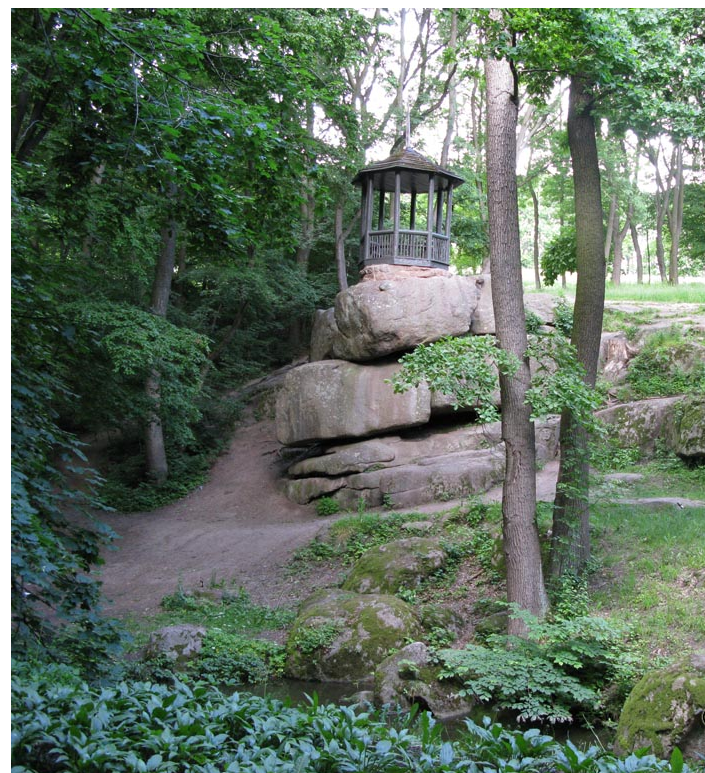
<?xml version="1.0" encoding="UTF-8"?>
<svg xmlns="http://www.w3.org/2000/svg" xmlns:xlink="http://www.w3.org/1999/xlink" width="705" height="773">
  <rect width="100%" height="100%" fill="#ffffff" />
  <image x="11" y="8" width="694" height="765" xlink:href="image1.png" />
</svg>
